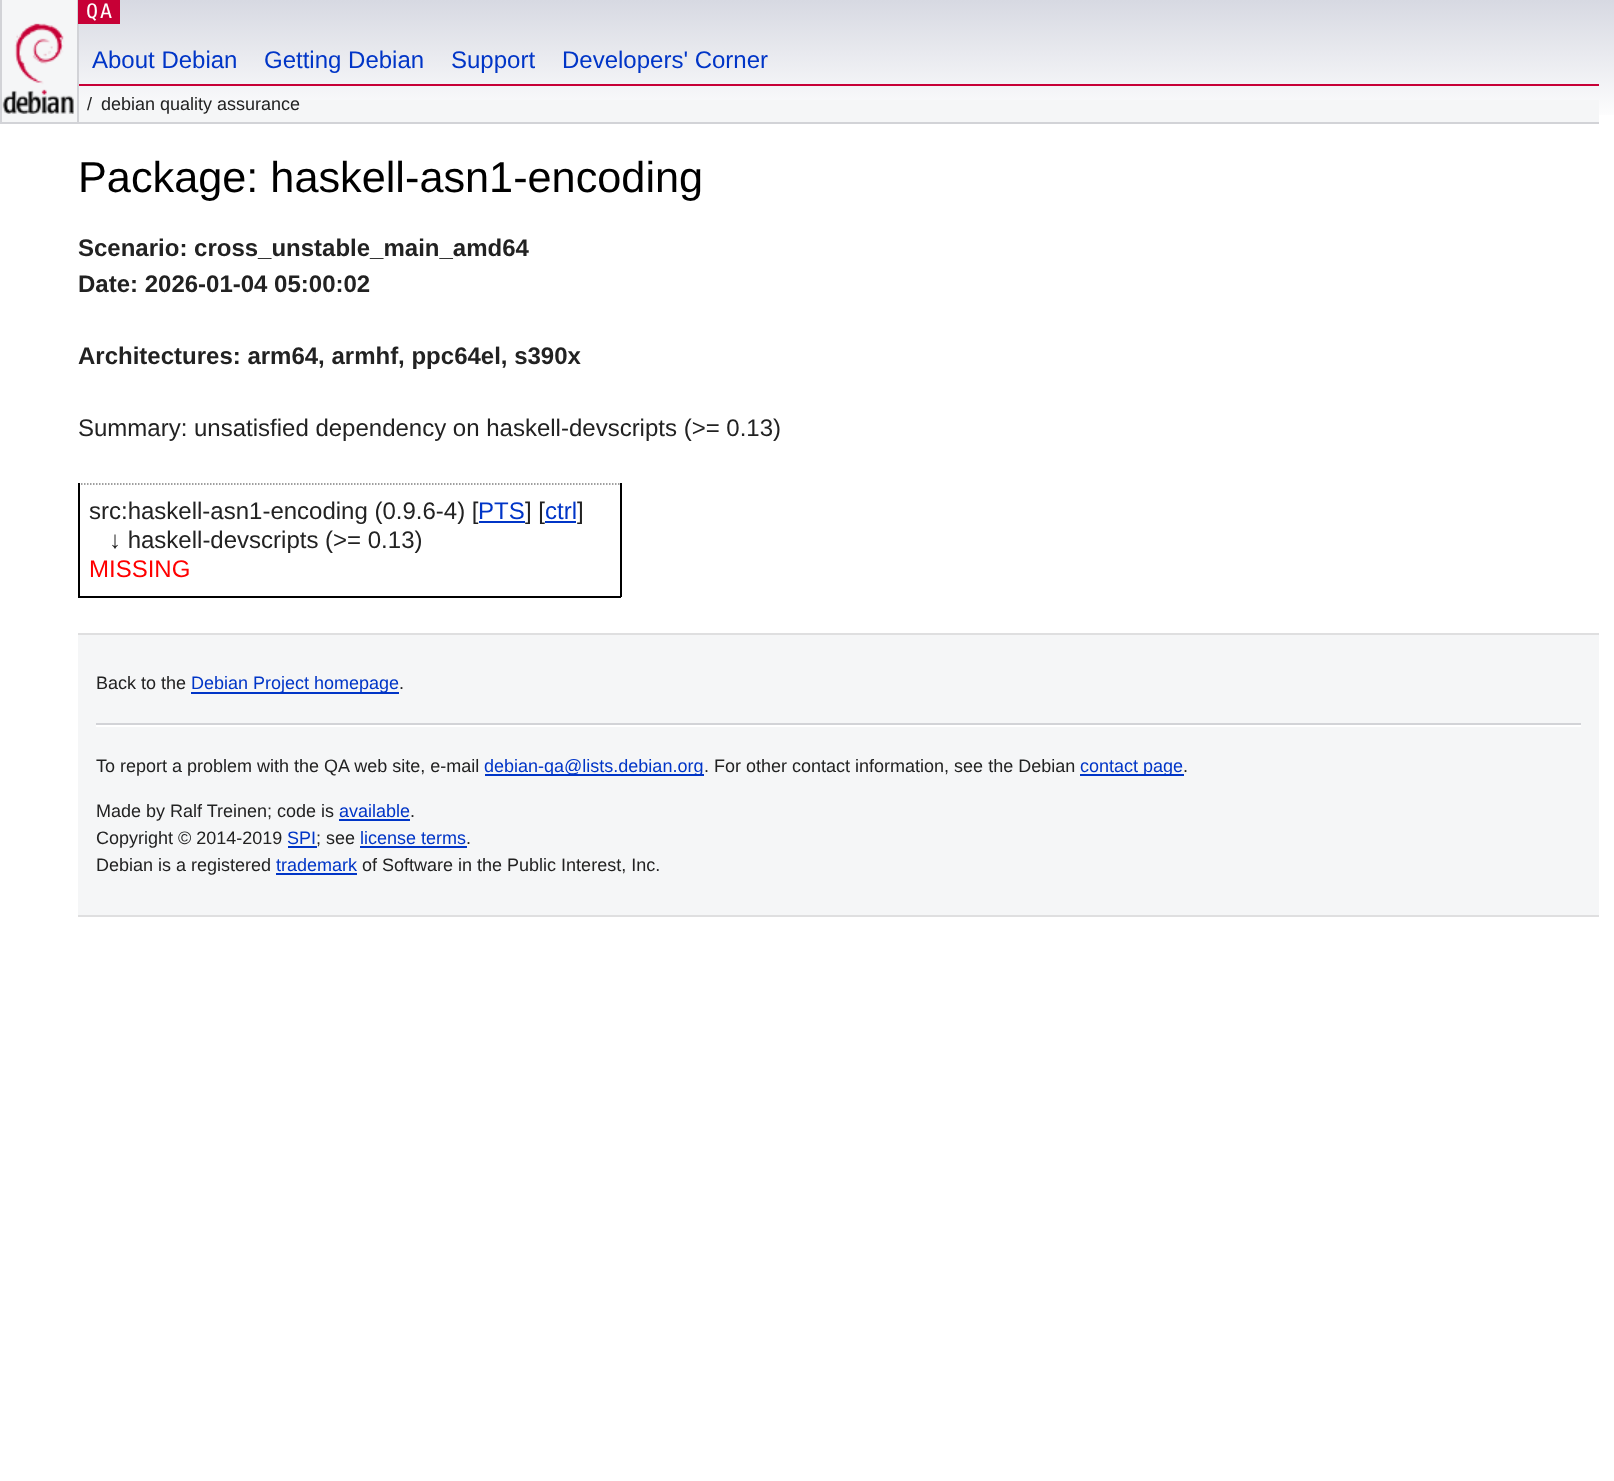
<?xml version="1.0" encoding="UTF-8"?>
<svg xmlns="http://www.w3.org/2000/svg" xmlns:xlink="http://www.w3.org/1999/xlink" width="1614" height="1481">
  <defs>
    <linearGradient id="g1" gradientUnits="userSpaceOnUse" x1="807" y1="0" x2="807" y2="123"><stop offset="0" stop-color="#d7d9e2" /><stop offset="1" stop-color="#ffffff" /></linearGradient>
  </defs>
  <rect width="100%" height="100%" fill="#ffffff" />
  <rect x="79" width="1535" height="115" fill="url(#g1)" />
  <rect x="2" width="75" height="122" fill="#f5f6f7" />
  <rect x="78" y="84" width="1521" height="2" fill="#c70036" />
  <rect x="78" y="122" width="1521" height="2" fill="#d2d3d7" />
  <rect x="77" width="2" height="123" fill="#d2d3d7" />
  <rect y="122" width="78" height="2" fill="#d2d3d7" />
  <rect width="2" height="123" fill="#d2d3d7" />
  <image x="2" y="23" width="72" height="91" xlink:href="image1.png" />
  <rect x="78" width="42" height="24" fill="#c70036" />
  <rect x="79" y="100" width="1520" height="22" fill="#f5f6f7" />
  <path d="M 78 484 h 543" fill="none" stroke="#808080" stroke-width="1.5" stroke-dasharray="1.5 1.5" />
  <rect x="620" y="483" width="2" height="114" fill="#000000" />
  <rect x="78" y="596" width="543" height="2" fill="#000000" />
  <rect x="78" y="483" width="2" height="114" fill="#000000" />
  <rect x="479" y="521" width="46" height="2" fill="#0035c7" />
  <rect x="545" y="521" width="31" height="2" fill="#0035c7" />
  <rect x="78" y="635" width="1521" height="280" fill="#f5f6f7" />
  <rect x="78" y="633" width="1521" height="2" fill="#dfdfe0" />
  <rect x="78" y="915" width="1521" height="2" fill="#dfdfe0" />
  <rect x="191" y="692" width="208" height="2" fill="#0035c7" />
  <rect x="96" y="723" width="1485" height="2" fill="#d2d3d7" />
  <rect x="96" y="725" width="1485" height="2" fill="#ffffff" />
  <rect x="485" y="774" width="219" height="2" fill="#0035c7" />
  <rect x="1080" y="774" width="104" height="2" fill="#0035c7" />
  <rect x="339" y="819" width="71" height="2" fill="#0035c7" />
  <rect x="288" y="846" width="29" height="2" fill="#0035c7" />
  <rect x="360" y="846" width="107" height="2" fill="#0035c7" />
  <rect x="276" y="873" width="81" height="2" fill="#0035c7" />
  <text x="86" y="18" style="font-family: DejaVu Sans Mono; font-size: 20px; letter-spacing: 2px; fill: #ffffff">QA</text>
  <text x="92" y="68" style="font-family: Liberation Sans; font-size: 24px; fill: #0035c7">About Debian</text>
  <text x="264" y="68" style="font-family: Liberation Sans; font-size: 24px; fill: #0035c7">Getting Debian</text>
  <text x="451" y="68" style="font-family: Liberation Sans; font-size: 24px; fill: #0035c7">Support</text>
  <text x="562" y="68" style="font-family: Liberation Sans; font-size: 24px; fill: #0035c7">Developers' Corner</text>
  <text x="87" y="110" style="font-family: Liberation Sans; font-size: 18px; fill: #222222">/</text>
  <text x="101" y="110" style="font-family: Liberation Sans; font-size: 18px; fill: #222222">debian quality assurance</text>
  <text x="78" y="192" style="font-family: Liberation Sans; font-size: 43.25px; fill: #000000">Package: haskell-asn1-encoding</text>
  <text x="78" y="256" style="font-family: Liberation Sans; font-size: 24px; font-weight: bold; fill: #222222">Scenario: cross_unstable_main_amd64</text>
  <text x="78" y="292" style="font-family: Liberation Sans; font-size: 24px; font-weight: bold; fill: #222222">Date: 2026-01-04 05:00:02</text>
  <text x="78" y="364" style="font-family: Liberation Sans; font-size: 24px; font-weight: bold; fill: #222222">Architectures: arm64, armhf, ppc64el, s390x</text>
  <text x="78" y="436" style="font-family: Liberation Sans; font-size: 24px; fill: #222222">Summary: unsatisfied dependency on haskell-devscripts (&gt;= 0.13)</text>
  <text x="89" y="519" style="font-family: Liberation Sans; font-size: 24px; fill: #222222">src:haskell-asn1-encoding (0.9.6-4) [</text>
  <text x="478" y="519" style="font-family: Liberation Sans; font-size: 24px; fill: #0035c7">PTS</text>
  <text x="525" y="519" style="font-family: Liberation Sans; font-size: 24px; fill: #222222">] [</text>
  <text x="545" y="519" style="font-family: Liberation Sans; font-size: 24px; fill: #0035c7">ctrl</text>
  <text x="577" y="519" style="font-family: Liberation Sans; font-size: 24px; fill: #222222">]</text>
  <text x="109" y="548" style="font-family: Liberation Sans; font-size: 24px; fill: #222222">↓ haskell-devscripts (&gt;= 0.13)</text>
  <text x="89" y="577" style="font-family: Liberation Sans; font-size: 24px; fill: #ff0000">MISSING</text>
  <text x="96" y="689" style="font-family: Liberation Sans; font-size: 18px; fill: #222222">Back to the</text>
  <text x="191" y="689" style="font-family: Liberation Sans; font-size: 18px; fill: #0035c7">Debian Project homepage</text>
  <text x="399" y="689" style="font-family: Liberation Sans; font-size: 18px; fill: #222222">.</text>
  <text x="96" y="772" style="font-family: Liberation Sans; font-size: 18px; fill: #222222">To report a problem with the QA web site, e-mail</text>
  <text x="484" y="772" style="font-family: Liberation Sans; font-size: 18px; fill: #0035c7">debian-qa@lists.debian.org</text>
  <text x="704" y="772" style="font-family: Liberation Sans; font-size: 18px; fill: #222222">. For other contact information, see the Debian</text>
  <text x="1080" y="772" style="font-family: Liberation Sans; font-size: 18px; fill: #0035c7">contact page</text>
  <text x="1183" y="772" style="font-family: Liberation Sans; font-size: 18px; fill: #222222">.</text>
  <text x="96" y="817" style="font-family: Liberation Sans; font-size: 18px; fill: #222222">Made by Ralf Treinen; code is</text>
  <text x="339" y="817" style="font-family: Liberation Sans; font-size: 18px; fill: #0035c7">available</text>
  <text x="410" y="817" style="font-family: Liberation Sans; font-size: 18px; fill: #222222">.</text>
  <text x="96" y="844" style="font-family: Liberation Sans; font-size: 18px; fill: #222222">Copyright © 2014-2019</text>
  <text x="287" y="844" style="font-family: Liberation Sans; font-size: 18px; fill: #0035c7">SPI</text>
  <text x="316" y="844" style="font-family: Liberation Sans; font-size: 18px; fill: #222222">; see</text>
  <text x="360" y="844" style="font-family: Liberation Sans; font-size: 18px; fill: #0035c7">license terms</text>
  <text x="466" y="844" style="font-family: Liberation Sans; font-size: 18px; fill: #222222">.</text>
  <text x="96" y="871" style="font-family: Liberation Sans; font-size: 18px; fill: #222222">Debian is a registered</text>
  <text x="276" y="871" style="font-family: Liberation Sans; font-size: 18px; fill: #0035c7">trademark</text>
  <text x="362" y="871" style="font-family: Liberation Sans; font-size: 18px; fill: #222222">of Software in the Public Interest, Inc.</text>
</svg>
